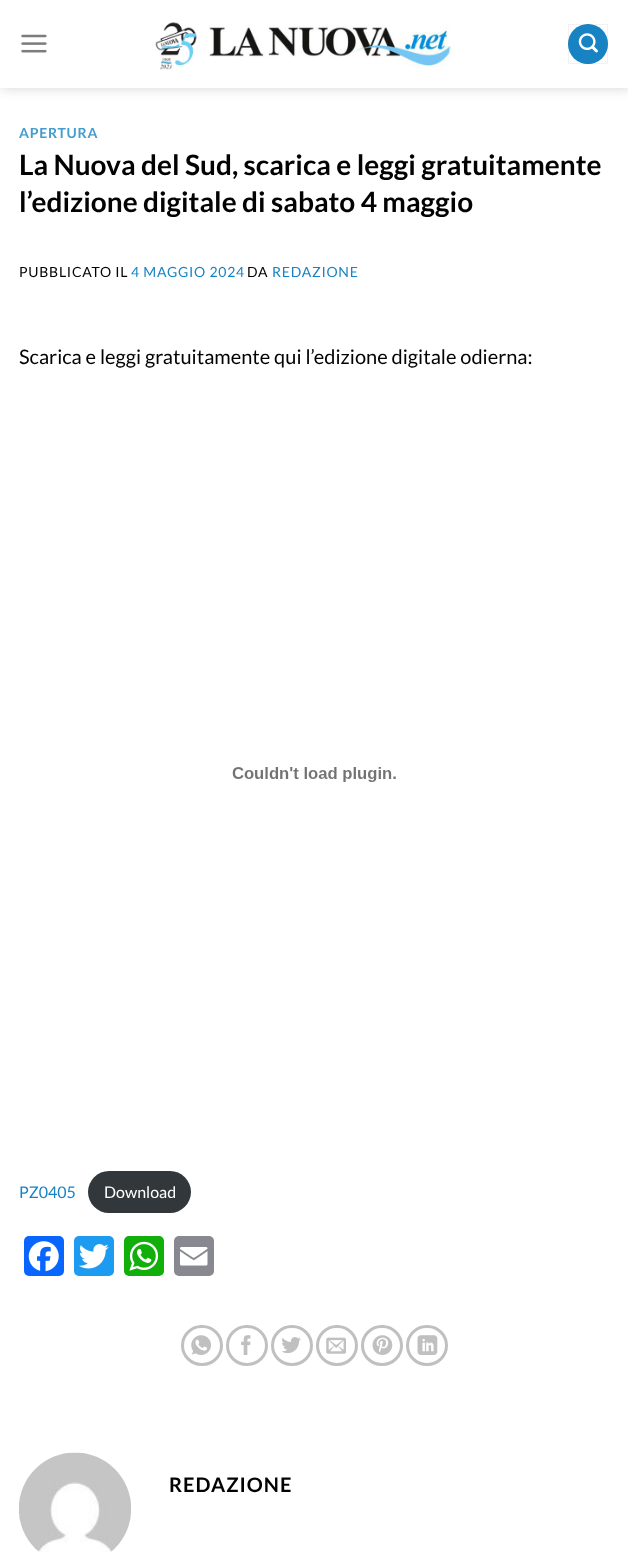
<?xml version="1.0" encoding="UTF-8"?>
<svg xmlns="http://www.w3.org/2000/svg" xmlns:xlink="http://www.w3.org/1999/xlink" width="628" height="1563">
  <rect width="100%" height="100%" fill="#ffffff" />
  <rect x="1" y="1" width="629" height="88" fill="#000000" fill-opacity="0.15" filter="blur(6px)" />
  <rect width="628" height="88" fill="#ffffff" />
  <image x="21" y="34" width="26" height="19" xlink:href="image1.png" />
  <image x="155" y="22" width="300" height="48" xlink:href="image2.png" />
  <circle cx="588" cy="44" r="20" fill="#1783c3" />
  <rect x="568.5" y="24.5" width="39" height="39" fill="none" stroke="#000000" stroke-opacity="0.05" />
  <image x="578" y="33" width="20" height="20" xlink:href="image3.png" />
  <image x="232" y="767" width="164" height="15" xlink:href="image4.png" />
  <rect x="88" y="1171" width="103" height="42" rx="21" fill="#32373c" />
  <rect x="24" y="1236" width="40" height="40" rx="5" fill="#0866ff" />
  <image x="28" y="1241" width="31" height="31" xlink:href="image5.png" />
  <rect x="74" y="1236" width="40" height="40" rx="5" fill="#1d9bf0" />
  <image x="79" y="1244" width="30" height="25" xlink:href="image6.png" />
  <rect x="124" y="1236" width="40" height="40" rx="5" fill="#12af0a" />
  <image x="129" y="1241" width="30" height="30" xlink:href="image7.png" />
  <rect x="174" y="1236" width="40" height="40" rx="5" fill="#888990" />
  <image x="180" y="1247" width="28" height="19" xlink:href="image8.png" />
  <rect x="182.5" y="1326.5" width="39" height="38" rx="19" fill="none" stroke="#c0c0c0" stroke-width="3" />
  <image x="191" y="1335" width="20" height="20" xlink:href="image9.png" />
  <rect x="227.5" y="1326.5" width="39" height="38" rx="19" fill="none" stroke="#c0c0c0" stroke-width="3" />
  <image x="241" y="1335" width="10" height="20" xlink:href="image10.png" />
  <rect x="272.5" y="1326.5" width="39" height="38" rx="19" fill="none" stroke="#c0c0c0" stroke-width="3" />
  <image x="281" y="1337" width="20" height="17" xlink:href="image11.png" />
  <rect x="317.5" y="1326.5" width="39" height="38" rx="19" fill="none" stroke="#c0c0c0" stroke-width="3" />
  <image x="326" y="1337" width="20" height="17" xlink:href="image12.png" />
  <rect x="362.5" y="1326.5" width="39" height="38" rx="19" fill="none" stroke="#c0c0c0" stroke-width="3" />
  <image x="372" y="1335" width="21" height="20" xlink:href="image13.png" />
  <rect x="407.5" y="1326.5" width="39" height="38" rx="19" fill="none" stroke="#c0c0c0" stroke-width="3" />
  <image x="417" y="1335" width="21" height="20" xlink:href="image14.png" />
  <image x="19" y="1452" width="112" height="100" xlink:href="image15.png" />
  <text x="19" y="138" style="font-family: Lato; font-size: 14px; font-weight: bold; letter-spacing: 0.75px; fill: #459ccf">APERTURA</text>
  <text x="19" y="175" style="font-family: Lato; font-size: 28px; font-weight: bold; fill: #020202">La Nuova del Sud, scarica e leggi gratuitamente</text>
  <text x="19" y="212" style="font-family: Lato; font-size: 28px; font-weight: bold; fill: #020202">l’edizione digitale di sabato 4 maggio</text>
  <text x="19" y="277" style="font-family: Lato; font-size: 14px; letter-spacing: 0.75px; fill: #020202">PUBBLICATO IL</text>
  <text x="131" y="277" style="font-family: Lato; font-size: 14px; letter-spacing: 0.75px; fill: #1783c3">4 MAGGIO 2024</text>
  <text x="247" y="277" style="font-family: Lato; font-size: 14px; letter-spacing: 0.75px; fill: #020202">DA</text>
  <text x="272" y="277" style="font-family: Lato; font-size: 14px; letter-spacing: 0.75px; fill: #1783c3">REDAZIONE</text>
  <text x="19" y="364" style="font-family: Lato; font-size: 20px; fill: #020202">Scarica e leggi gratuitamente qui l’edizione digitale odierna:</text>
  <text x="19" y="1198" style="font-family: Lato; font-size: 16px; fill: #1783c3">PZ0405</text>
  <text x="104" y="1198" style="font-family: Lato; font-size: 16px; fill: #ffffff">Download</text>
  <text x="169" y="1492" style="font-family: Lato; font-size: 20px; font-weight: bold; letter-spacing: 1px; fill: #020202">REDAZIONE</text>
</svg>
